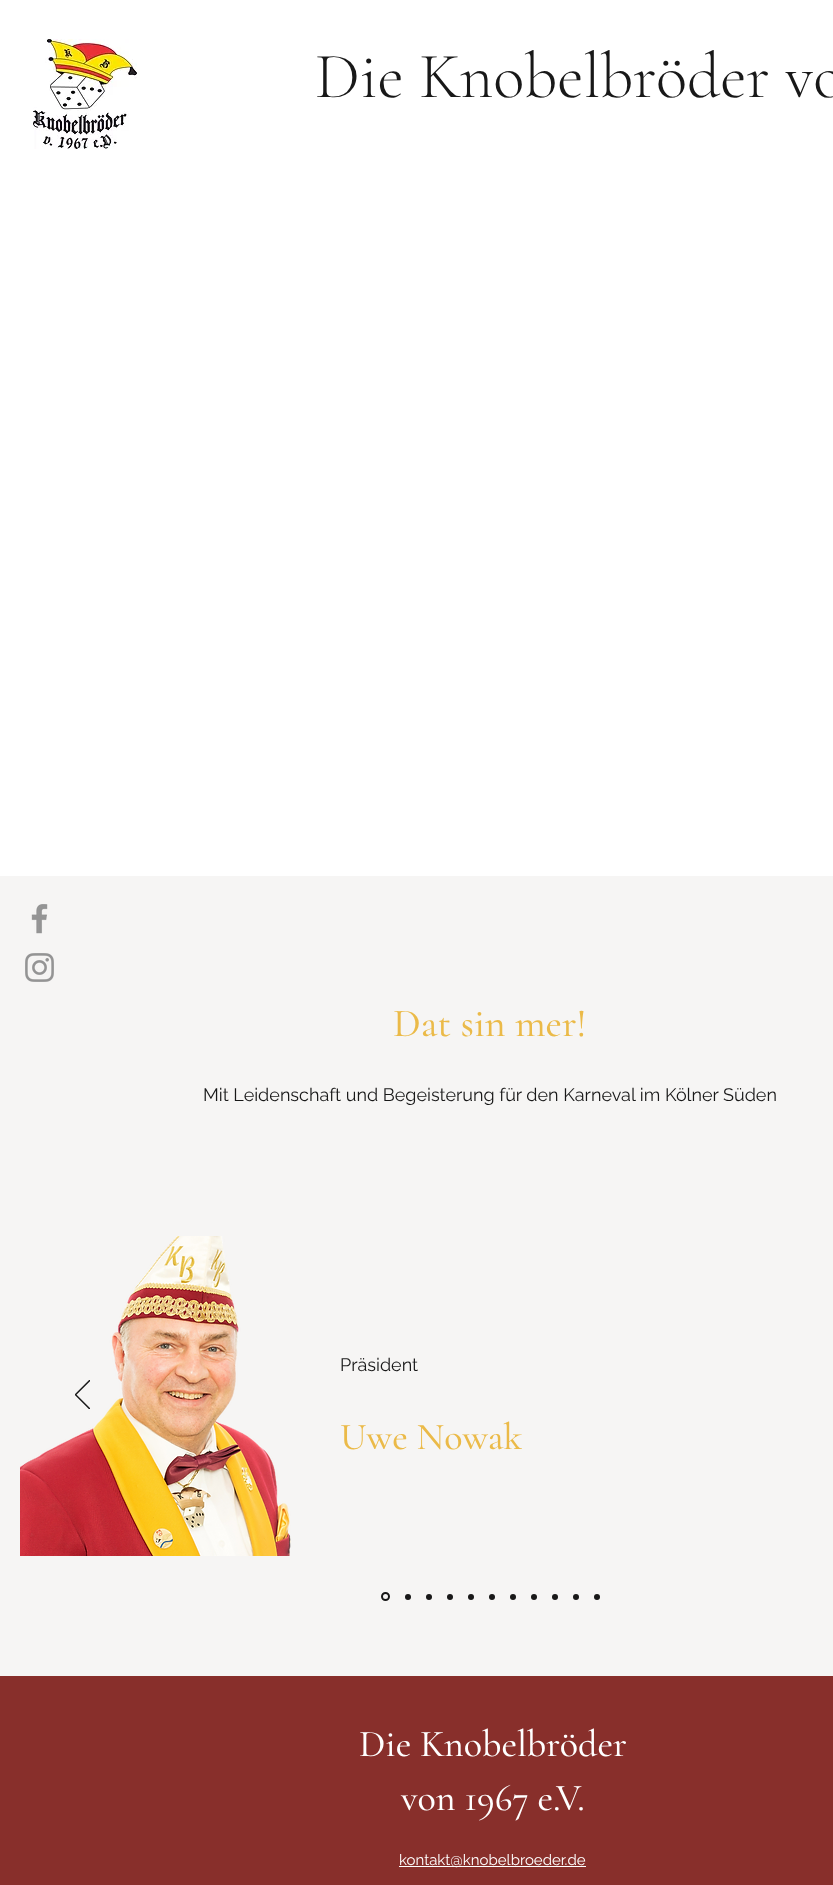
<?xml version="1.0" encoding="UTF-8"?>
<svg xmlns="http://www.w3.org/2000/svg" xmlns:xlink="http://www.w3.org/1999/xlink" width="833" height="1885">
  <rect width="100%" height="100%" fill="#ffffff" />
  <image x="33" y="39" width="104" height="110" xlink:href="image1.png" />
  <rect y="876" width="833" height="800" fill="#f6f5f4" />
  <image x="31" y="904" width="17" height="30" xlink:href="image2.png" />
  <image x="25" y="953" width="29" height="29" xlink:href="image3.png" />
  <image x="20" y="1236" width="271" height="320" xlink:href="image5.png" />
  <image x="75" y="1380" width="15" height="29" xlink:href="image4.png" />
  <circle cx="385.5" cy="1596.5" r="3.5" fill="none" stroke="#181818" stroke-width="2" />
  <circle cx="408" cy="1597" r="3" fill="#181818" />
  <circle cx="429" cy="1597" r="3" fill="#181818" />
  <circle cx="450" cy="1597" r="3" fill="#181818" />
  <circle cx="471" cy="1597" r="3" fill="#181818" />
  <circle cx="492" cy="1597" r="3" fill="#181818" />
  <circle cx="513" cy="1597" r="3" fill="#181818" />
  <circle cx="534" cy="1597" r="3" fill="#181818" />
  <circle cx="555" cy="1597" r="3" fill="#181818" />
  <circle cx="576" cy="1597" r="3" fill="#181818" />
  <circle cx="597" cy="1597" r="3" fill="#181818" />
  <rect y="1676" width="833" height="209" fill="#882f2b" />
  <rect x="399" y="1866" width="187" height="1" fill="#ffffff" />
  <text x="315" y="97" style="font-family: Cormorant Garamond; font-size: 65px; font-weight: 300; fill: #181818">Die Knobelbröder vo</text>
  <text x="393" y="1036" style="font-family: Cormorant Garamond; font-size: 40px; font-weight: 500; fill: #ebba48">Dat sin mer!</text>
  <text x="203" y="1101" style="font-family: Raleway; font-size: 18px; fill: #181818">Mit Leidenschaft und Begeisterung für den Karneval im Kölner Süden</text>
  <text x="340" y="1371" style="font-family: Raleway; font-size: 18px; fill: #181818">Präsident</text>
  <text x="340" y="1449" style="font-family: Cormorant Garamond; font-size: 38px; font-weight: 500; fill: #ebba48">Uwe Nowak</text>
  <text x="359" y="1756" style="font-family: Cormorant Garamond; font-size: 38px; font-weight: 500; fill: #ffffff">Die Knobelbröder</text>
  <text x="401" y="1810" style="font-family: Cormorant Garamond; font-size: 38px; font-weight: 500; fill: #ffffff">von 1967 e.V.</text>
  <text x="399" y="1865" style="font-family: Raleway; font-size: 15px; fill: #ffffff">kontakt@knobelbroeder.de</text>
</svg>
